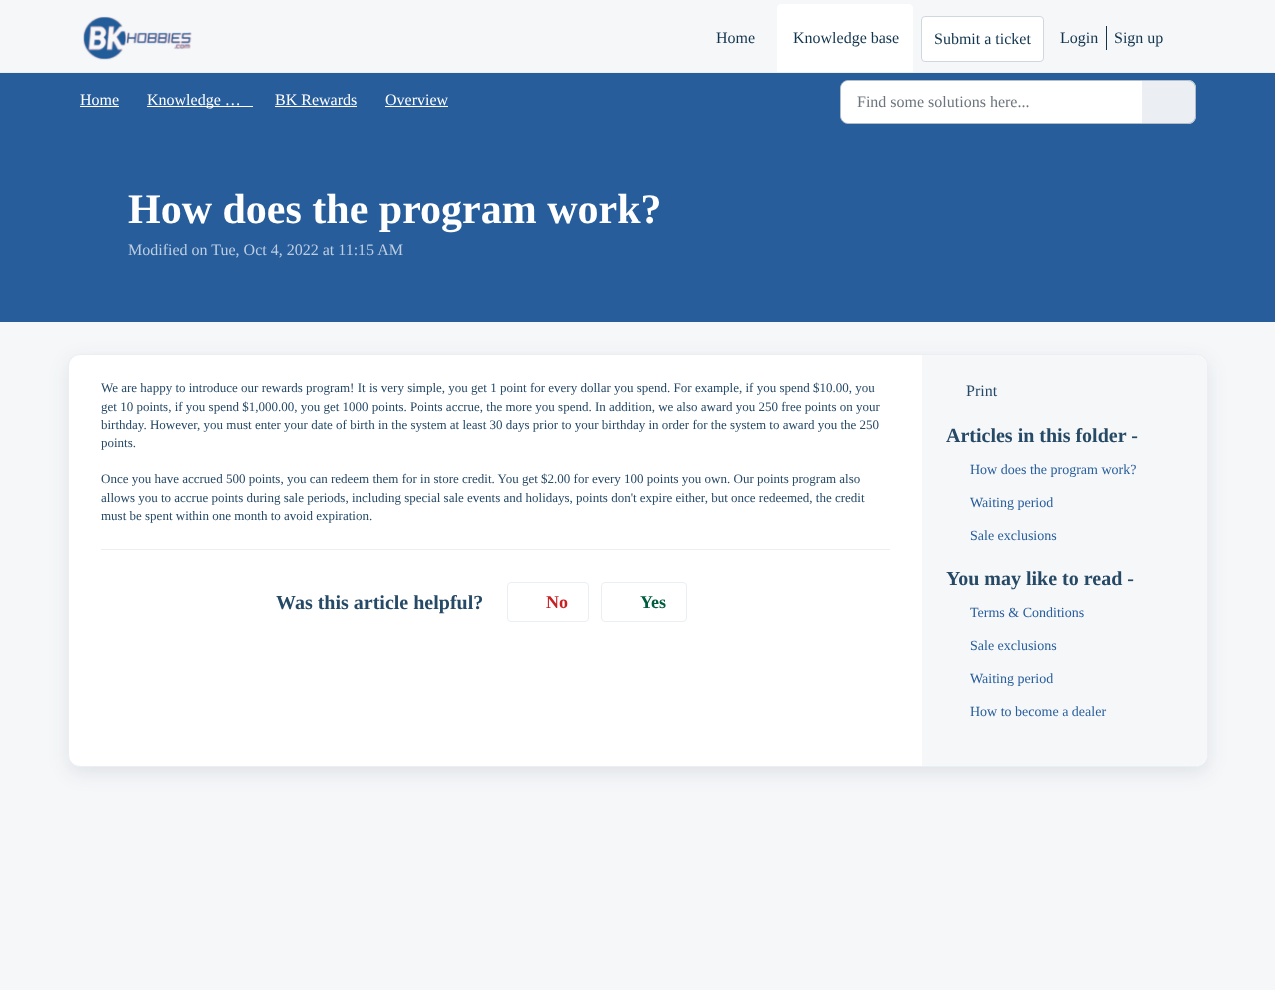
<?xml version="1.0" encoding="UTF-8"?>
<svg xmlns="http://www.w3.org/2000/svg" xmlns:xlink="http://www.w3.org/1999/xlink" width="1275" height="990">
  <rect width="100%" height="100%" fill="#f5f7f9" />
  <rect y="72" width="1275" height="1" fill="#ebeff3" />
  <image x="83" y="16" width="109" height="44" xlink:href="image1.png" />
  <path d="M 781 4 h 128 c 2 0 4 2 4 4 v 64 h -136 v -64 c 0 -2 2 -4 4 -4 z" fill="#ffffff" />
  <rect x="921.5" y="16.5" width="122" height="45" rx="3.5" fill="#ffffff" stroke="#cfd7df" />
  <rect x="1106" y="26" width="1" height="24" fill="#12344d" />
  <rect y="73" width="1275" height="249" fill="#275d9b" />
  <rect x="80" y="106" width="39" height="1" fill="#ffffff" />
  <rect x="147" y="106" width="106" height="1" fill="#ffffff" />
  <rect x="275" y="106" width="82" height="1" fill="#ffffff" />
  <rect x="385" y="106" width="63" height="1" fill="#ffffff" />
  <path d="M 848 80.5 h 294.5 v 43 h -294.5 c -4 0 -7.5 -3.5 -7.5 -7.5 v -28 c 0 -4 3.5 -7.5 7.5 -7.5 z" fill="#ffffff" stroke="#b1bdc8" />
  <path d="M 1142 80 h 46 c 4.5 0 8 3.5 8 8 v 28 c 0 4.5 -3.5 8 -8 8 h -46 z" fill="#ebeff3" />
  <path d="M 1142 80 h 46 c 4 0 8 4 8 8 v 28 c 0 4 -4 8 -8 8 h -46 z m 0 1 h 46 c 4 0 7 3 7 7 v 28 c 0 4 -3 7 -7 7 h -46 z" fill="#b1bdc8" fill-rule="evenodd" />
  <rect x="68" y="360" width="1140" height="413" rx="12" fill="#27313a" fill-opacity="0.1" filter="blur(9.5px)" />
  <rect x="68.5" y="354.5" width="1139" height="412" rx="11.5" fill="#ffffff" stroke="#ebeff3" />
  <rect x="101" y="549" width="789" height="1" fill="#ebeff3" />
  <rect x="507.5" y="582.5" width="81" height="39" rx="3.5" fill="none" stroke="#ebeff3" />
  <rect x="601.5" y="582.5" width="85" height="39" rx="3.5" fill="none" stroke="#ebeff3" />
  <path d="M 922 355 h 273 c 6.5 0 12 5.5 12 12 v 387 c 0 6.5 -5.5 12 -12 12 h -273 z" fill="#f5f7f9" />
  <text x="716" y="43" style="font-family: Liberation Serif; font-size: 16px; fill: #12344d">Home</text>
  <text x="793" y="43" style="font-family: Liberation Serif; font-size: 16px; fill: #12344d">Knowledge base</text>
  <text x="934" y="44" style="font-family: Liberation Serif; font-size: 16px; fill: #12344d">Submit a ticket</text>
  <text x="1060" y="43" style="font-family: Liberation Serif; font-size: 16px; fill: #12344d">Login</text>
  <text x="1114" y="43" style="font-family: Liberation Serif; font-size: 16px; fill: #12344d">Sign up</text>
  <text x="80" y="105" style="font-family: Liberation Serif; font-size: 16px; fill: #ffffff">Home</text>
  <text x="147" y="105" style="font-family: Liberation Serif; font-size: 16px; fill: #ffffff">Knowledge …</text>
  <text x="275" y="105" style="font-family: Liberation Serif; font-size: 16px; fill: #ffffff">BK Rewards</text>
  <text x="385" y="105" style="font-family: Liberation Serif; font-size: 16px; fill: #ffffff">Overview</text>
  <text x="857" y="107" style="font-family: Liberation Serif; font-size: 16px; fill: #6c757d">Find some solutions here...</text>
  <text x="128" y="223" style="font-family: Liberation Serif; font-size: 42px; font-weight: bold; fill: #ffffff">How does the program work?</text>
  <text x="128" y="255" style="font-family: Liberation Serif; font-size: 16px; fill: #becee1">Modified on Tue, Oct 4, 2022 at 11:15 AM</text>
  <text x="101" y="392" style="font-family: Liberation Serif; font-size: 13px; fill: #264966">We are happy to introduce our rewards program! It is very simple, you get 1 point for every dollar you spend. For example, if you spend $10.00, you</text>
  <text x="101" y="411" style="font-family: Liberation Serif; font-size: 13px; fill: #264966">get 10 points, if you spend $1,000.00, you get 1000 points. Points accrue, the more you spend. In addition, we also award you 250 free points on your</text>
  <text x="101" y="429" style="font-family: Liberation Serif; font-size: 13px; fill: #264966">birthday. However, you must enter your date of birth in the system at least 30 days prior to your birthday in order for the system to award you the 250</text>
  <text x="101" y="447" style="font-family: Liberation Serif; font-size: 13px; fill: #264966">points.</text>
  <text x="101" y="483" style="font-family: Liberation Serif; font-size: 13px; fill: #264966">Once you have accrued 500 points, you can redeem them for in store credit. You get $2.00 for every 100 points you own. Our points program also</text>
  <text x="101" y="502" style="font-family: Liberation Serif; font-size: 13px; fill: #264966">allows you to accrue points during sale periods, including special sale events and holidays, points don't expire either, but once redeemed, the credit</text>
  <text x="101" y="520" style="font-family: Liberation Serif; font-size: 13px; fill: #264966">must be spent within one month to avoid expiration.</text>
  <text x="276" y="609" style="font-family: Liberation Serif; font-size: 20px; font-weight: bold; fill: #264966">Was this article helpful?</text>
  <text x="546" y="608" style="font-family: Liberation Serif; font-size: 18px; font-weight: bold; fill: #c82124">No</text>
  <text x="640" y="608" style="font-family: Liberation Serif; font-size: 18px; font-weight: bold; fill: #005c3f">Yes</text>
  <text x="966" y="396" style="font-family: Liberation Serif; font-size: 16px; fill: #264966">Print</text>
  <text x="946" y="442" style="font-family: Liberation Serif; font-size: 20px; font-weight: bold; fill: #264966">Articles in this folder -</text>
  <text x="970" y="474" style="font-family: Liberation Serif; font-size: 14px; fill: #275d9b">How does the program work?</text>
  <text x="970" y="507" style="font-family: Liberation Serif; font-size: 14px; fill: #275d9b">Waiting period</text>
  <text x="970" y="540" style="font-family: Liberation Serif; font-size: 14px; fill: #275d9b">Sale exclusions</text>
  <text x="946" y="585" style="font-family: Liberation Serif; font-size: 20px; font-weight: bold; fill: #264966">You may like to read -</text>
  <text x="970" y="617" style="font-family: Liberation Serif; font-size: 14px; fill: #275d9b">Terms &amp; Conditions</text>
  <text x="970" y="650" style="font-family: Liberation Serif; font-size: 14px; fill: #275d9b">Sale exclusions</text>
  <text x="970" y="683" style="font-family: Liberation Serif; font-size: 14px; fill: #275d9b">Waiting period</text>
  <text x="970" y="716" style="font-family: Liberation Serif; font-size: 14px; fill: #275d9b">How to become a dealer</text>
</svg>
